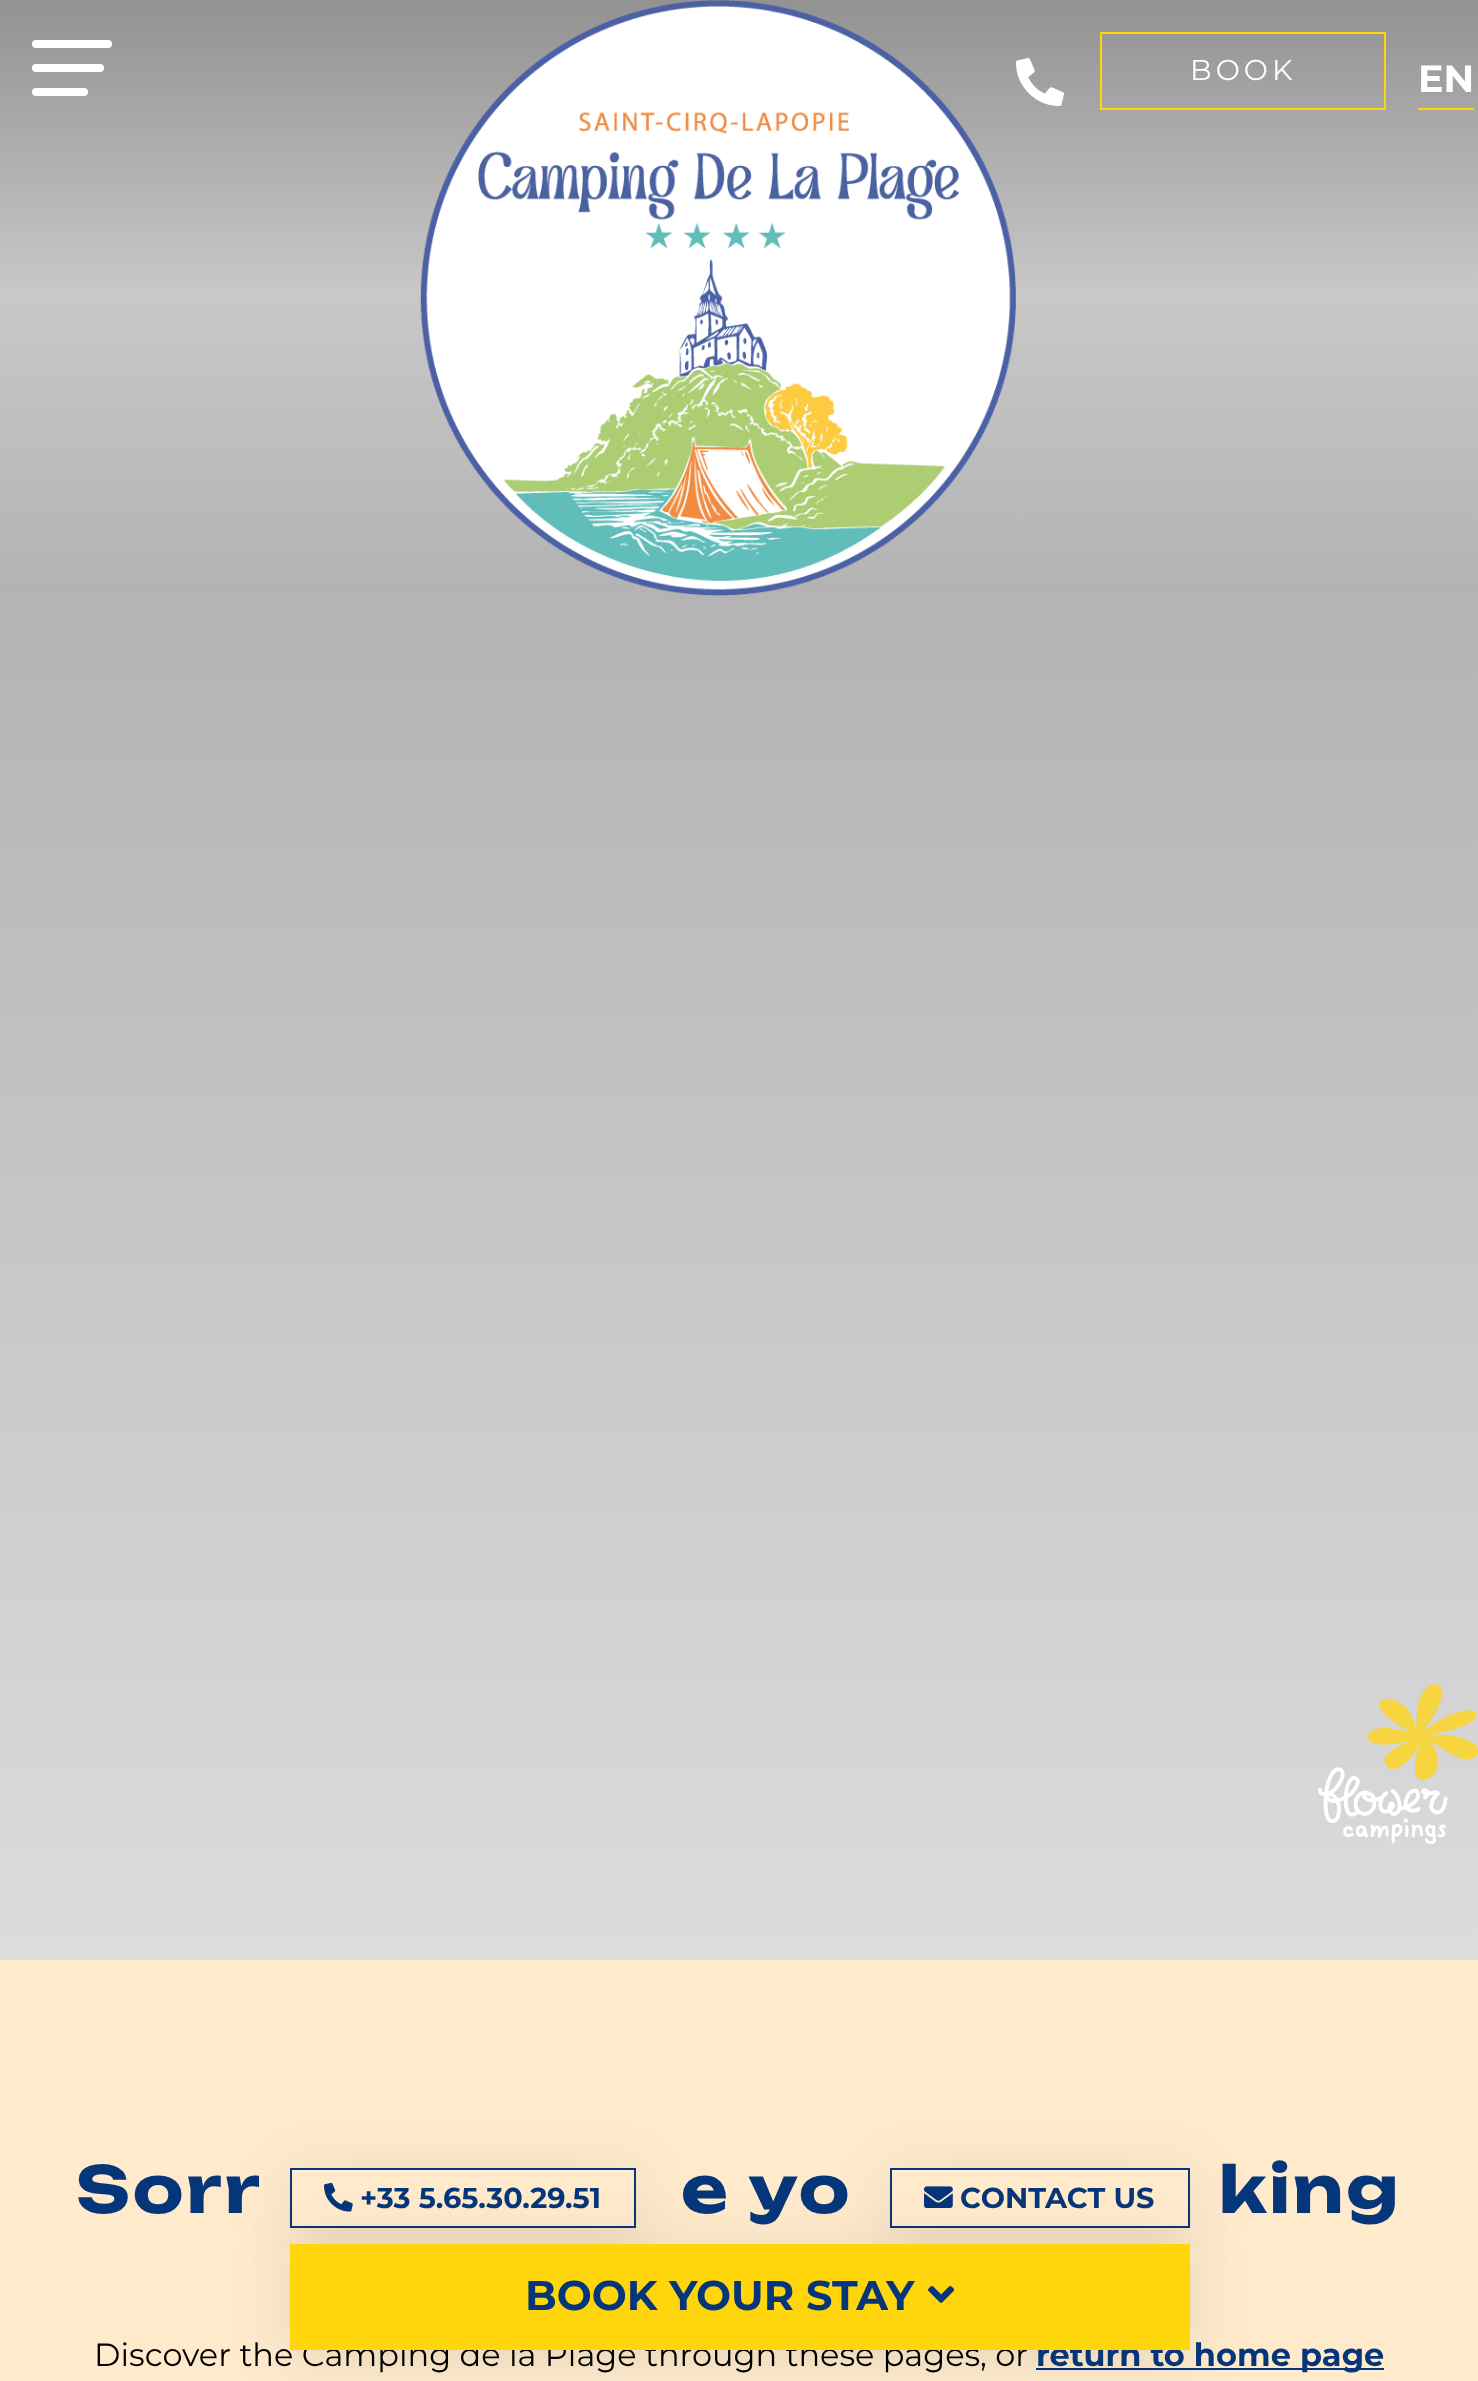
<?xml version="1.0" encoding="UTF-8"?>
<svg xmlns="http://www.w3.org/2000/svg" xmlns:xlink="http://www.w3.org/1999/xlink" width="1478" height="2381">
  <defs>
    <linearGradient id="g1" gradientUnits="userSpaceOnUse" x1="739" y1="1960" x2="739" y2="0"><stop offset="0" stop-color="#dcdcdc" /><stop offset="0.7" stop-color="#b3b3b3" /><stop offset="0.85" stop-color="#c8c8c8" /><stop offset="1" stop-color="#929292" /></linearGradient>
  </defs>
  <rect width="100%" height="100%" fill="#ffebcc" />
  <rect width="1478" height="1960" fill="url(#g1)" />
  <rect x="32" y="40" width="80" height="8" rx="4" fill="#ffffff" />
  <rect x="32" y="64" width="72" height="8" rx="4" fill="#ffffff" />
  <rect x="32" y="88" width="56" height="8" rx="4" fill="#ffffff" />
  <image x="416" y="0" width="600" height="596" xlink:href="image1.png" />
  <image x="1016" y="58" width="48" height="48" xlink:href="image2.png" />
  <rect x="1101" y="33" width="284" height="76" fill="none" stroke="#ffd50c" stroke-width="2" />
  <rect x="1418" y="108" width="56" height="2" fill="#ffd50c" />
  <rect x="1036" y="2368" width="348" height="2" fill="#06367a" />
  <image x="1318" y="1684" width="160" height="160" xlink:href="image3.png" />
  <rect x="290" y="2176" width="346" height="60" fill="#000000" fill-opacity="0.1" filter="blur(30px)" />
  <rect x="291" y="2169" width="344" height="58" fill="#ffebcc" stroke="#06367a" stroke-width="2" />
  <image x="324" y="2182" width="29" height="30" xlink:href="image4.png" />
  <rect x="890" y="2176" width="300" height="60" fill="#000000" fill-opacity="0.1" filter="blur(30px)" />
  <rect x="891" y="2169" width="298" height="58" fill="#ffebcc" stroke="#06367a" stroke-width="2" />
  <image x="924" y="2186" width="29" height="22" xlink:href="image5.png" />
  <rect x="290" y="2252" width="900" height="106" fill="#000000" fill-opacity="0.1" filter="blur(30px)" />
  <text x="1190" y="80" style="font-family: Montserrat; font-size: 28.75px; letter-spacing: 4px; fill: #ffffff">BOOK</text>
  <text x="1418" y="92" style="font-family: Montserrat; font-size: 38px; font-weight: bold; fill: #ffffff">EN</text>
  <text x="76" y="2213" style="font-family: Unbounded; font-size: 64px; font-weight: bold; letter-spacing: 3px; fill: #06367a">Sorr</text>
  <text x="681" y="2213" style="font-family: Unbounded; font-size: 64px; font-weight: bold; letter-spacing: 3px; fill: #06367a">e yo</text>
  <text x="1219" y="2213" style="font-family: Unbounded; font-size: 64px; font-weight: bold; letter-spacing: 3px; fill: #06367a">king</text>
  <text x="94" y="2366" style="font-family: Montserrat; font-size: 32px; fill: #000000">Discover the Camping de la Plage through these pages, or</text>
  <text x="1036" y="2366" style="font-family: Montserrat; font-size: 32px; font-weight: bold; fill: #06367a">return to home page</text>
  <text x="360" y="2208" style="font-family: Montserrat; font-size: 28.75px; font-weight: bold; fill: #06367a">+33 5.65.30.29.51</text>
  <text x="960" y="2208" style="font-family: Montserrat; font-size: 28.75px; font-weight: bold; fill: #06367a">CONTACT US</text>
  <rect x="290" y="2244" width="900" height="106" fill="#ffd50c" />
  <text x="525" y="2310" style="font-family: Montserrat; font-size: 41.5px; font-weight: bold; fill: #06367a">BOOK YOUR STAY</text>
  <image x="928" y="2286" width="27" height="17" xlink:href="image6.png" />
</svg>
